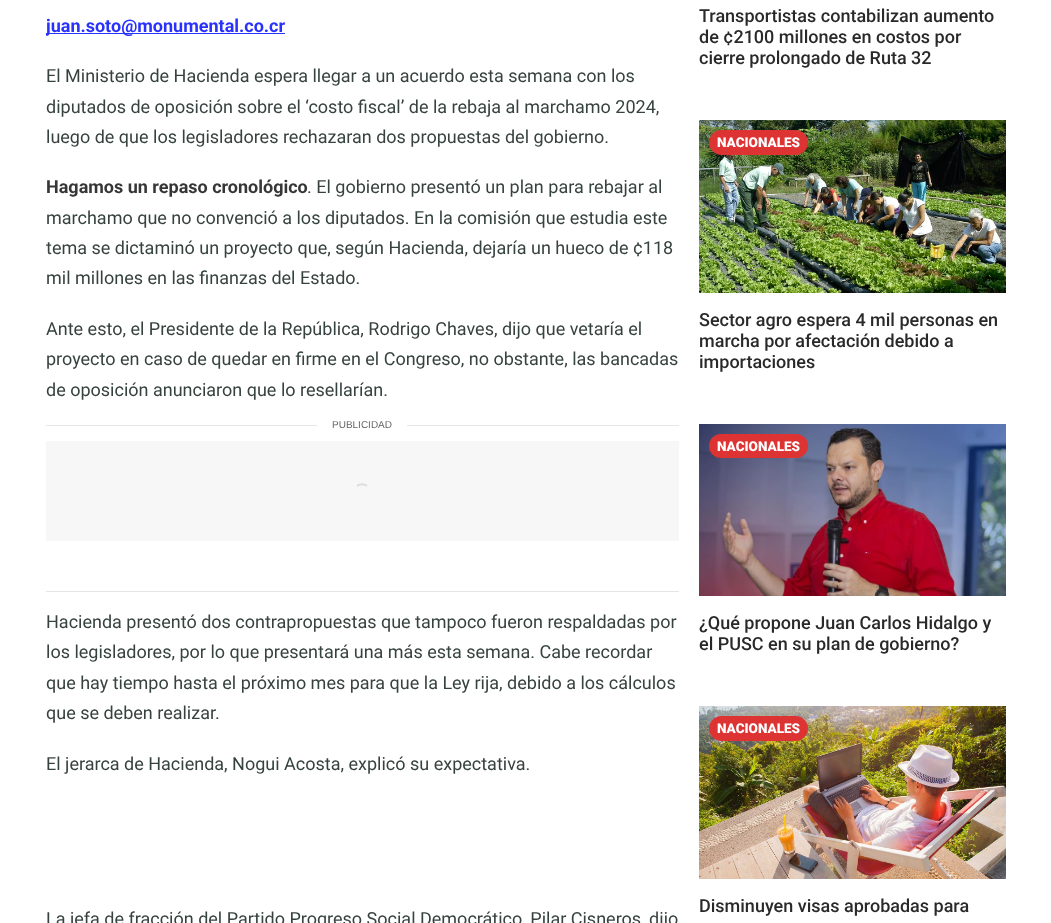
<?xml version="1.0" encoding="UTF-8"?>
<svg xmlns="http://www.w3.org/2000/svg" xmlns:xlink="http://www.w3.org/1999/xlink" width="1051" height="923">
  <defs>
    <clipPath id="clip1"><rect x="46" width="633" height="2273" /></clipPath>
  </defs>
  <rect width="100%" height="100%" fill="#ffffff" />
  <rect x="46" y="33" width="239" height="1" fill="#2832fc" />
  <rect x="46" y="425" width="633" height="1" fill="#e6e6e6" />
  <rect x="46" y="591" width="633" height="1" fill="#e6e6e6" />
  <rect x="317" y="425" width="90" height="1" fill="#ffffff" />
  <rect x="46" y="441" width="633" height="100" fill="#f7f7f7" />
  <path d="M 357 486 c 2.5 -2.5 7.5 -2.5 10 0" fill="none" stroke="#dedede" stroke-width="2" />
  <image x="699" y="120" width="307" height="173" xlink:href="image1.png" />
  <rect x="709" y="130" width="99" height="25" rx="12.5" fill="#dd3333" />
  <image x="699" y="424" width="307" height="172" xlink:href="image2.png" />
  <rect x="709" y="434" width="99" height="24" rx="12" fill="#dd3333" />
  <image x="699" y="706" width="307" height="173" xlink:href="image3.png" />
  <rect x="709" y="716" width="99" height="25" rx="12.5" fill="#dd3333" />
  <g clip-path="url(#clip1)">
    <text x="46" y="32" style="font-family: Roboto; font-size: 18px; font-weight: bold; fill: #2832fc">juan.soto@monumental.co.cr</text>
  </g>
  <text x="46" y="82" style="font-family: Roboto; font-size: 18px; fill: #36423f">El Ministerio de Hacienda espera llegar a un acuerdo esta semana con los</text>
  <text x="46" y="113" style="font-family: Roboto; font-size: 18px; fill: #36423f">diputados de oposición sobre el ‘costo fiscal’ de la rebaja al marchamo 2024,</text>
  <text x="46" y="143" style="font-family: Roboto; font-size: 18px; fill: #36423f">luego de que los legisladores rechazaran dos propuestas del gobierno.</text>
  <text x="46" y="193" style="font-family: Roboto; font-size: 18px; font-weight: bold; fill: #363636">Hagamos un repaso cronológico</text>
  <text x="307" y="193" style="font-family: Roboto; font-size: 18px; fill: #36423f">. El gobierno presentó un plan para rebajar al</text>
  <text x="46" y="224" style="font-family: Roboto; font-size: 18px; fill: #36423f">marchamo que no convenció a los diputados. En la comisión que estudia este</text>
  <text x="46" y="254" style="font-family: Roboto; font-size: 18px; fill: #36423f">tema se dictaminó un proyecto que, según Hacienda, dejaría un hueco de ¢118</text>
  <text x="46" y="284" style="font-family: Roboto; font-size: 18px; fill: #36423f">mil millones en las finanzas del Estado.</text>
  <text x="46" y="335" style="font-family: Roboto; font-size: 18px; fill: #36423f">Ante esto, el Presidente de la República, Rodrigo Chaves, dijo que vetaría el</text>
  <text x="46" y="365" style="font-family: Roboto; font-size: 18px; fill: #36423f">proyecto en caso de quedar en firme en el Congreso, no obstante, las bancadas</text>
  <text x="46" y="396" style="font-family: Roboto; font-size: 18px; fill: #36423f">de oposición anunciaron que lo resellarían.</text>
  <text x="332" y="428" style="font-family: Liberation Sans; font-size: 10px; fill: #666666">PUBLICIDAD</text>
  <text x="46" y="628" style="font-family: Roboto; font-size: 18px; fill: #36423f">Hacienda presentó dos contrapropuestas que tampoco fueron respaldadas por</text>
  <text x="46" y="658" style="font-family: Roboto; font-size: 18px; fill: #36423f">los legisladores, por lo que presentará una más esta semana. Cabe recordar</text>
  <text x="46" y="689" style="font-family: Roboto; font-size: 18px; fill: #36423f">que hay tiempo hasta el próximo mes para que la Ley rija, debido a los cálculos</text>
  <text x="46" y="719" style="font-family: Roboto; font-size: 18px; fill: #36423f">que se deben realizar.</text>
  <text x="46" y="770" style="font-family: Roboto; font-size: 18px; fill: #36423f">El jerarca de Hacienda, Nogui Acosta, explicó su expectativa.</text>
  <text x="46" y="925" style="font-family: Roboto; font-size: 18px; fill: #36423f">La jefa de fracción del Partido Progreso Social Democrático, Pilar Cisneros, dijo</text>
  <text x="699" y="22" style="font-family: Roboto; font-size: 18px; font-weight: 500; fill: #292929">Transportistas contabilizan aumento</text>
  <text x="699" y="43" style="font-family: Roboto; font-size: 18px; font-weight: 500; fill: #292929">de ¢2100 millones en costos por</text>
  <text x="699" y="64" style="font-family: Roboto; font-size: 18px; font-weight: 500; fill: #292929">cierre prolongado de Ruta 32</text>
  <text x="717" y="147" style="font-family: Roboto; font-size: 13.5px; font-weight: 900; fill: #ffffff">NACIONALES</text>
  <text x="699" y="326" style="font-family: Roboto; font-size: 18px; font-weight: 500; fill: #292929">Sector agro espera 4 mil personas en</text>
  <text x="699" y="347" style="font-family: Roboto; font-size: 18px; font-weight: 500; fill: #292929">marcha por afectación debido a</text>
  <text x="699" y="368" style="font-family: Roboto; font-size: 18px; font-weight: 500; fill: #292929">importaciones</text>
  <text x="717" y="451" style="font-family: Roboto; font-size: 13.5px; font-weight: 900; fill: #ffffff">NACIONALES</text>
  <text x="699" y="629" style="font-family: Roboto; font-size: 18px; font-weight: 500; fill: #292929">¿Qué propone Juan Carlos Hidalgo y</text>
  <text x="699" y="650" style="font-family: Roboto; font-size: 18px; font-weight: 500; fill: #292929">el PUSC en su plan de gobierno?</text>
  <text x="717" y="733" style="font-family: Roboto; font-size: 13.5px; font-weight: 900; fill: #ffffff">NACIONALES</text>
  <text x="699" y="912" style="font-family: Roboto; font-size: 18px; font-weight: 500; fill: #292929">Disminuyen visas aprobadas para</text>
</svg>
